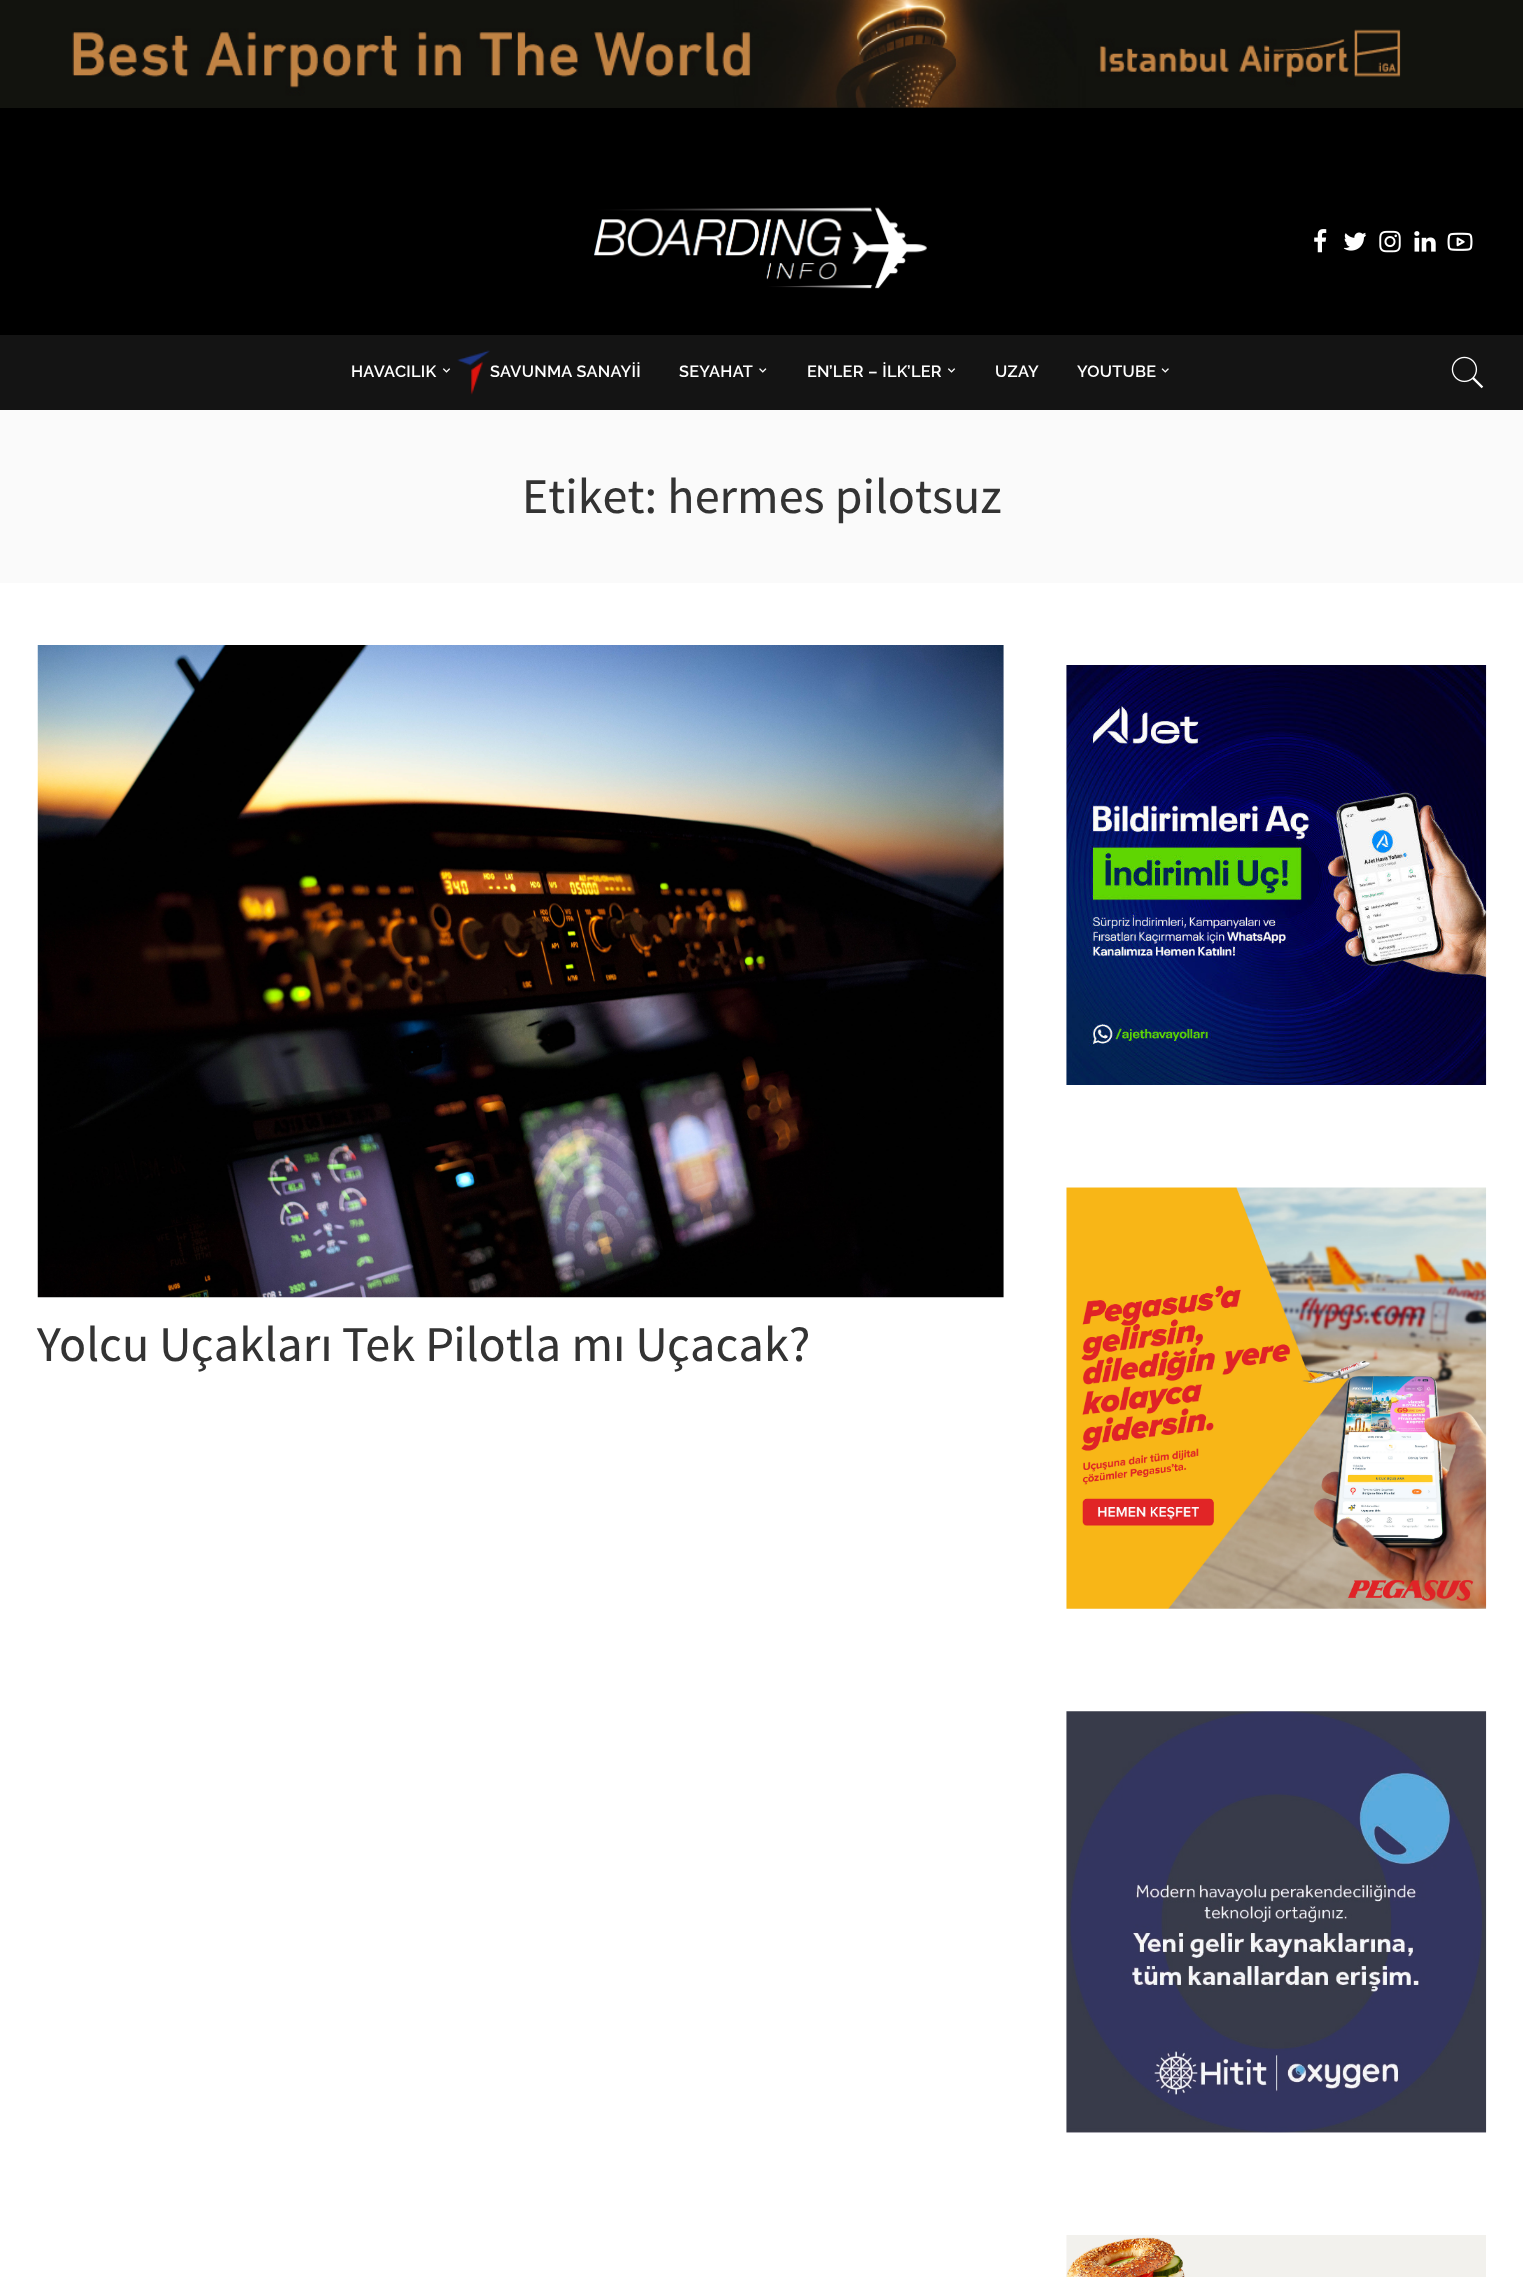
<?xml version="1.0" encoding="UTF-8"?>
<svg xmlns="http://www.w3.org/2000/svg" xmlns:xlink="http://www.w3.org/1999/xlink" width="1523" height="2277">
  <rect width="100%" height="100%" fill="#ffffff" />
  <rect width="1523" height="108" fill="#12130e" />
  <image x="72" y="0" width="1329" height="108" xlink:href="image1.png" />
  <rect y="108" width="1523" height="227" fill="#000000" />
  <image x="593" y="207" width="334" height="82" xlink:href="image2.png" />
  <image x="1314" y="229" width="13" height="24" xlink:href="image3.png" />
  <image x="1343" y="232" width="24" height="19" xlink:href="image4.png" />
  <image x="1379" y="230" width="22" height="23" xlink:href="image5.png" />
  <image x="1414" y="231" width="22" height="21" xlink:href="image6.png" />
  <image x="1447" y="232" width="26" height="19" xlink:href="image7.png" />
  <rect y="335" width="1523" height="75" fill="#141414" />
  <image x="442" y="368" width="9" height="5" xlink:href="image8.png" />
  <image x="457" y="350" width="33" height="45" xlink:href="image9.png" />
  <image x="759" y="368" width="8" height="5" xlink:href="image10.png" />
  <image x="947" y="368" width="9" height="5" xlink:href="image8.png" />
  <image x="1161" y="368" width="8" height="5" xlink:href="image11.png" />
  <image x="1451" y="356" width="33" height="33" xlink:href="image12.png" />
  <rect y="410" width="1523" height="173" fill="#fafafa" />
  <image x="37" y="645" width="967" height="653" xlink:href="image13.png" />
  <image x="1066" y="665" width="421" height="420" xlink:href="image14.png" />
  <image x="1066" y="1187" width="421" height="422" xlink:href="image15.png" />
  <image x="1066" y="1711" width="421" height="422" xlink:href="image16.png" />
  <image x="1066" y="2235" width="420" height="42" xlink:href="image17.png" />
  <text x="351" y="377" style="font-family: Raleway; font-size: 16.25px; font-weight: 600; letter-spacing: 0.3px; fill: #ffffff">HAVACILIK</text>
  <text x="490" y="377" style="font-family: Raleway; font-size: 16.25px; font-weight: 600; letter-spacing: 0.3px; fill: #ffffff">SAVUNMA SANAYİİ</text>
  <text x="679" y="377" style="font-family: Raleway; font-size: 16.25px; font-weight: 600; letter-spacing: 0.3px; fill: #ffffff">SEYAHAT</text>
  <text x="807" y="377" style="font-family: Raleway; font-size: 16.25px; font-weight: 600; letter-spacing: 0.3px; fill: #ffffff">EN’LER – İLK’LER</text>
  <text x="995" y="377" style="font-family: Raleway; font-size: 16.25px; font-weight: 600; letter-spacing: 0.3px; fill: #ffffff">UZAY</text>
  <text x="1077" y="377" style="font-family: Raleway; font-size: 16.25px; font-weight: 600; letter-spacing: 0.3px; fill: #ffffff">YOUTUBE</text>
  <text x="522" y="513" style="font-family: Varta; font-size: 50px; font-weight: 500; fill: #333333">Etiket: hermes pilotsuz</text>
  <text x="37" y="1361" style="font-family: Varta; font-size: 50px; font-weight: 500; fill: #333333">Yolcu Uçakları Tek Pilotla mı Uçacak?</text>
</svg>
